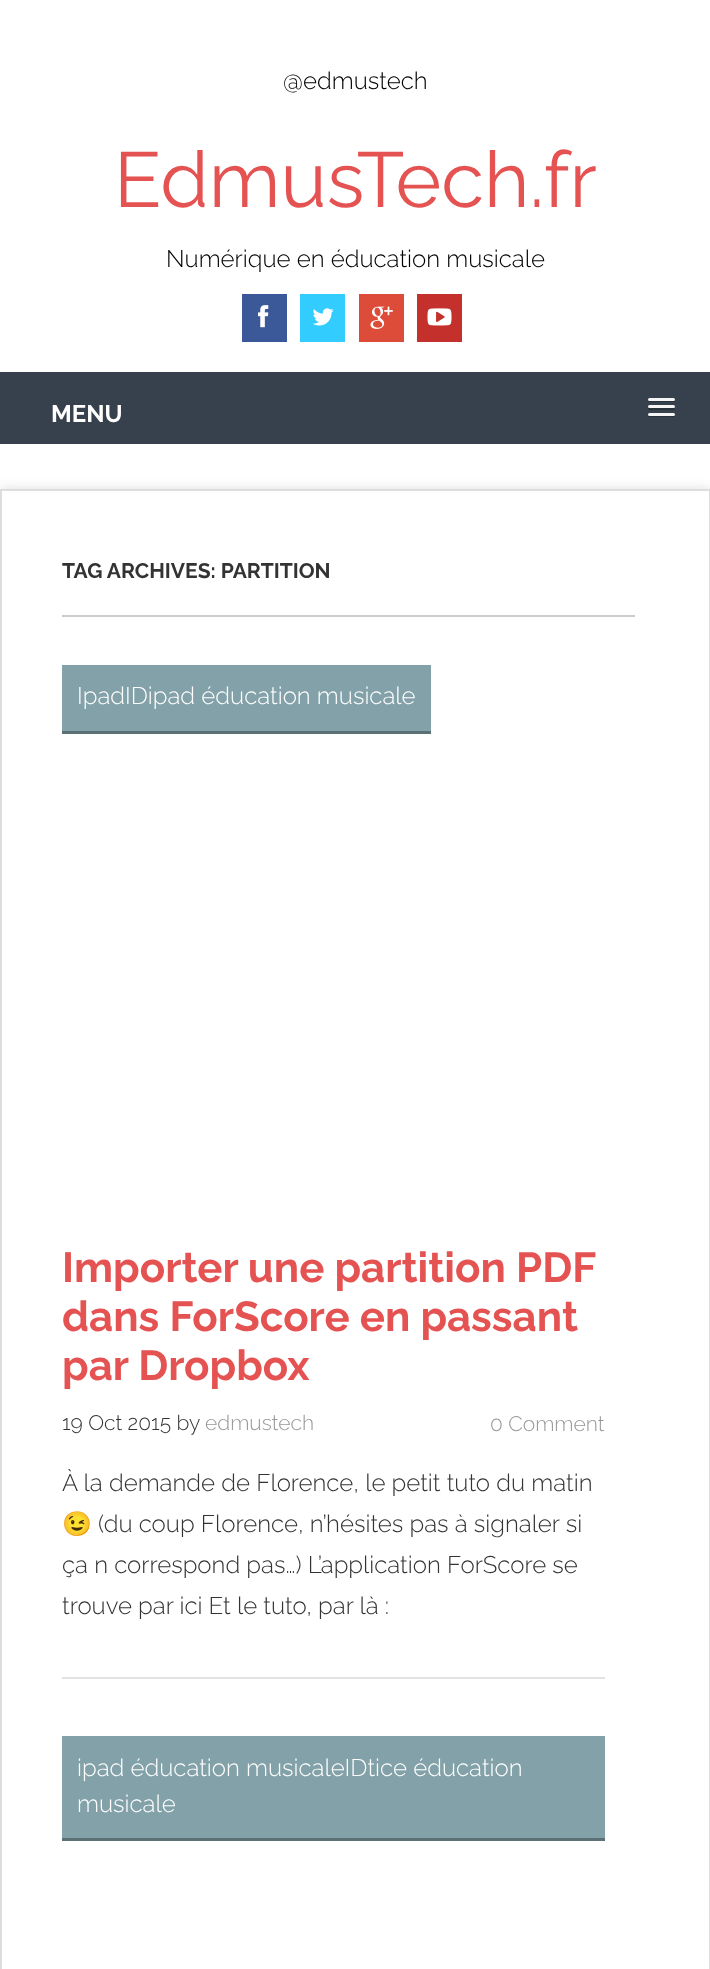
<?xml version="1.0" encoding="UTF-8"?>
<svg xmlns="http://www.w3.org/2000/svg" xmlns:xlink="http://www.w3.org/1999/xlink" width="710" height="1969">
  <defs>
    <clipPath id="clip1"><rect x="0" y="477" width="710" height="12" /></clipPath>
  </defs>
  <rect width="100%" height="100%" fill="#ffffff" />
  <rect x="242" y="294" width="45" height="48" fill="#3b5998" />
  <image x="258" y="305" width="11" height="23" xlink:href="image1.png" />
  <rect x="300" y="294" width="45" height="48" fill="#33ccff" />
  <image x="312" y="308" width="22" height="18" xlink:href="image2.png" />
  <rect x="359" y="294" width="45" height="48" fill="#dd4b39" />
  <image x="370" y="306" width="23" height="23" xlink:href="image3.png" />
  <rect x="417" y="294" width="45" height="48" fill="#c4302b" />
  <image x="427" y="308" width="25" height="18" xlink:href="image4.png" />
  <rect y="372" width="710" height="72" fill="#37414e" />
  <path d="M 648 400 c -1.5 3 5.5 2 5.5 2 h 16 c 0 0 7 1 5.5 -2 c -0.5 0 -1 0.5 -1.5 0.5 h -24 c -0.5 0 -1 -0.5 -1.5 -0.5 z" fill="#29313b" />
  <rect x="648" y="398" width="27" height="3" rx="1.5" fill="#f5f5f5" />
  <path d="M 648.5 407.5 l -0.5 1.5 c 0.5 2 5 1 5.5 1 h 16 c 0.5 0 5 1 5.5 -1 l -0.5 -1.5 l -1 0.5 h -24 z" fill="#29313b" />
  <rect x="648" y="405" width="27" height="3" rx="1.5" fill="#f5f5f5" />
  <path d="M 648 415 c -1.5 3 5.5 2 5.5 2 h 16 c 0 0 7 1 5.5 -2 c -0.5 0 -1 0.5 -1.5 0.5 h -24 c -0.5 0 -1 -0.5 -1.5 -0.5 z" fill="#29313b" />
  <rect x="648" y="413" width="27" height="3" rx="1.5" fill="#f5f5f5" />
  <g clip-path="url(#clip1)">
    <rect y="489" width="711" height="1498" fill="#dddddd" filter="blur(6px)" />
  </g>
  <rect x="1" y="490" width="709" height="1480" fill="none" stroke="#dddddd" stroke-width="2" />
  <rect x="62" y="615" width="573" height="2" fill="#cccccc" />
  <rect x="62" y="1677" width="543" height="2" fill="#e3e3e3" />
  <rect x="62" y="665" width="369" height="66" fill="#83a1a8" />
  <rect x="62" y="731" width="369" height="3" fill="#5c7176" />
  <rect x="62" y="1736" width="543" height="102" fill="#83a1a8" />
  <rect x="62" y="1838" width="543" height="3" fill="#5c7176" />
  <text x="283" y="89" style="font-family: Raleway; font-size: 24px; font-weight: 300; fill: #000000">@edmustech</text>
  <text x="114" y="207" style="font-family: Raleway; font-size: 78px; fill: #e55252">EdmusTech.fr</text>
  <text x="166" y="267" style="font-family: Raleway; font-size: 24px; font-weight: 300; fill: #000000">Numérique en éducation musicale</text>
  <text x="51" y="422" style="font-family: Raleway; font-size: 24px; font-weight: bold; fill: #ffffff">MENU</text>
  <text x="62" y="578" style="font-family: Raleway; font-size: 21px; font-weight: bold; fill: #333333">TAG ARCHIVES: PARTITION</text>
  <text x="77" y="704" style="font-family: Raleway; font-size: 24px; font-weight: 300; fill: #ffffff">IpadIDipad éducation musicale</text>
  <text x="62" y="1282" style="font-family: Raleway; font-size: 42px; font-weight: bold; fill: #e55252">Importer une partition PDF</text>
  <text x="62" y="1331" style="font-family: Raleway; font-size: 42px; font-weight: bold; fill: #e55252">dans ForScore en passant</text>
  <text x="62" y="1380" style="font-family: Raleway; font-size: 42px; font-weight: bold; fill: #e55252">par Dropbox</text>
  <text x="62" y="1430" style="font-family: Raleway; font-size: 21px; font-weight: 300; fill: #333333">19 Oct 2015 by</text>
  <text x="205" y="1430" style="font-family: Raleway; font-size: 21px; font-weight: 300; fill: #989696">edmustech</text>
  <text x="490" y="1431" style="font-family: Raleway; font-size: 21px; font-weight: 300; fill: #989696">0 Comment</text>
  <text x="62" y="1491" style="font-family: Raleway; font-size: 24px; font-weight: 300; fill: #333333">À la demande de Florence, le petit tuto du matin</text>
  <text x="62" y="1532" style="font-family: Noto Color Emoji; font-size: 24px; fill: #333333">😉</text>
  <text x="98" y="1532" style="font-family: Raleway; font-size: 24px; font-weight: 300; fill: #333333">(du coup Florence, n’hésites pas à signaler si</text>
  <text x="62" y="1573" style="font-family: Raleway; font-size: 24px; font-weight: 300; fill: #333333">ça n correspond pas…) L’application ForScore se</text>
  <text x="62" y="1614" style="font-family: Raleway; font-size: 24px; font-weight: 300; fill: #333333">trouve par ici Et le tuto, par là :</text>
  <text x="77" y="1776" style="font-family: Raleway; font-size: 24px; font-weight: 300; fill: #ffffff">ipad éducation musicaleIDtice éducation</text>
  <text x="77" y="1812" style="font-family: Raleway; font-size: 24px; font-weight: 300; fill: #ffffff">musicale</text>
</svg>
